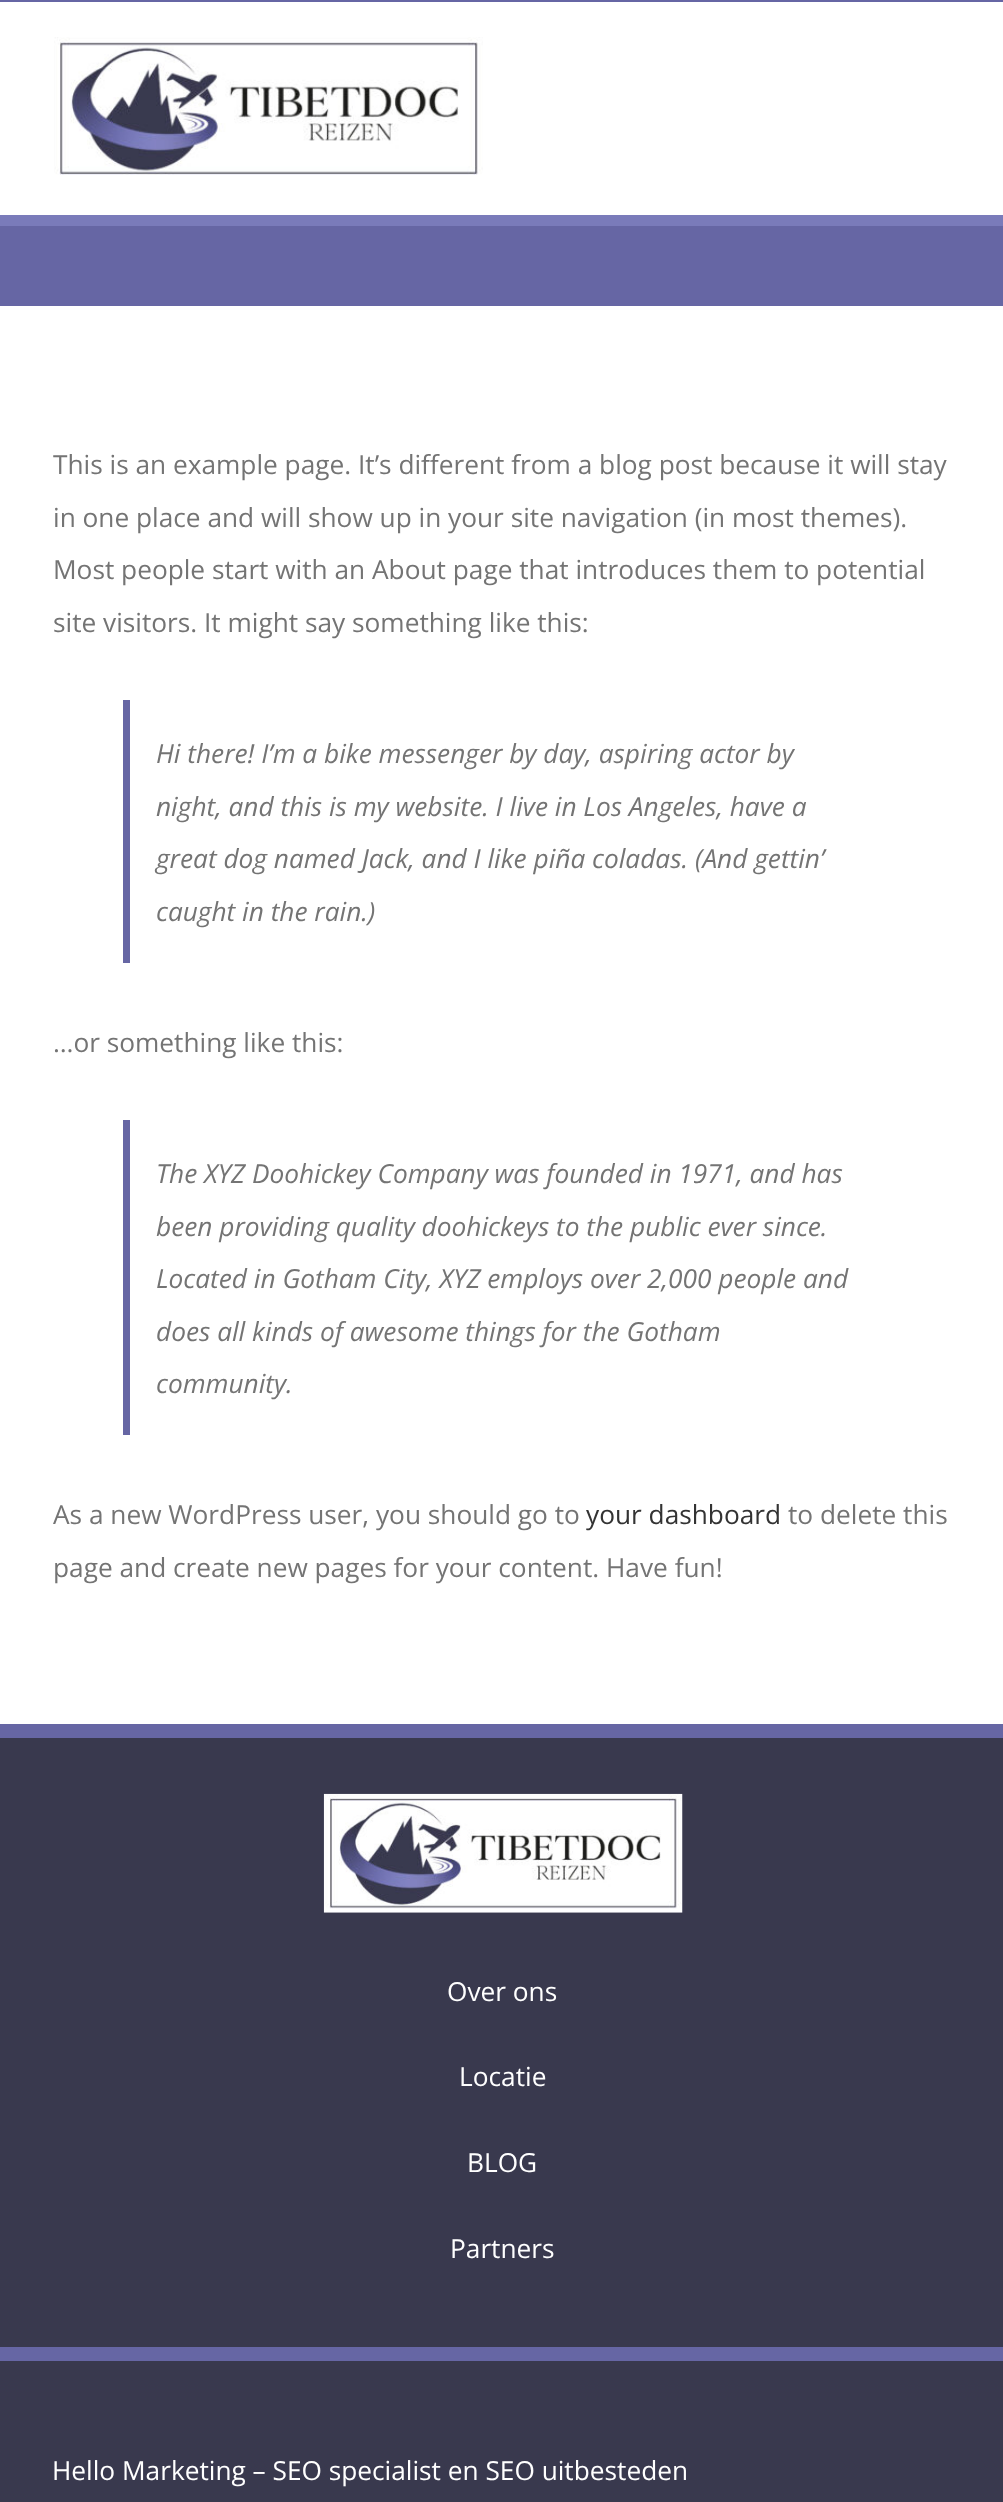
<?xml version="1.0" encoding="UTF-8"?>
<svg xmlns="http://www.w3.org/2000/svg" xmlns:xlink="http://www.w3.org/1999/xlink" width="1003" height="2502">
  <rect width="100%" height="100%" fill="#ffffff" />
  <rect width="1003" height="306" fill="#6666a4" />
  <rect y="2" width="1003" height="213" fill="#ffffff" />
  <rect y="215" width="1003" height="11" fill="#7a7bba" />
  <image x="54" y="37" width="429" height="138" xlink:href="image1.png" />
  <rect x="123" y="700" width="7" height="263" fill="#6666a4" />
  <rect x="123" y="1120" width="7" height="315" fill="#6666a4" />
  <rect y="1738" width="1003" height="609" fill="#39394e" />
  <rect y="1724" width="1003" height="14" fill="#6666a4" />
  <image x="323" y="1793" width="360" height="120" xlink:href="image2.png" />
  <rect y="2361" width="1003" height="141" fill="#39394e" />
  <rect y="2347" width="1003" height="14" fill="#6666a4" />
  <text x="53" y="474" style="font-family: Open Sans; font-size: 26.25px; fill: #747474">This is an example page. It’s different from a blog post because it will stay</text>
  <text x="53" y="527" style="font-family: Open Sans; font-size: 26.25px; fill: #747474">in one place and will show up in your site navigation (in most themes).</text>
  <text x="53" y="579" style="font-family: Open Sans; font-size: 26.25px; fill: #747474">Most people start with an About page that introduces them to potential</text>
  <text x="53" y="632" style="font-family: Open Sans; font-size: 26.25px; fill: #747474">site visitors. It might say something like this:</text>
  <text x="156" y="763" style="font-family: Open Sans; font-size: 26.25px; font-style: italic; fill: #747474">Hi there! I’m a bike messenger by day, aspiring actor by</text>
  <text x="156" y="816" style="font-family: Open Sans; font-size: 26.25px; font-style: italic; fill: #747474">night, and this is my website. I live in Los Angeles, have a</text>
  <text x="156" y="868" style="font-family: Open Sans; font-size: 26.25px; font-style: italic; fill: #747474">great dog named Jack, and I like piña coladas. (And gettin’</text>
  <text x="156" y="921" style="font-family: Open Sans; font-size: 26.25px; font-style: italic; fill: #747474">caught in the rain.)</text>
  <text x="53" y="1052" style="font-family: Open Sans; font-size: 26.25px; fill: #747474">…or something like this:</text>
  <text x="156" y="1183" style="font-family: Open Sans; font-size: 26.25px; font-style: italic; fill: #747474">The XYZ Doohickey Company was founded in 1971, and has</text>
  <text x="156" y="1236" style="font-family: Open Sans; font-size: 26.25px; font-style: italic; fill: #747474">been providing quality doohickeys to the public ever since.</text>
  <text x="156" y="1288" style="font-family: Open Sans; font-size: 26.25px; font-style: italic; fill: #747474">Located in Gotham City, XYZ employs over 2,000 people and</text>
  <text x="156" y="1341" style="font-family: Open Sans; font-size: 26.25px; font-style: italic; fill: #747474">does all kinds of awesome things for the Gotham</text>
  <text x="156" y="1393" style="font-family: Open Sans; font-size: 26.25px; font-style: italic; fill: #747474">community.</text>
  <text x="53" y="1524" style="font-family: Open Sans; font-size: 26.25px; fill: #747474">As a new WordPress user, you should go to</text>
  <text x="586" y="1524" style="font-family: Open Sans; font-size: 26.25px; fill: #333333">your dashboard</text>
  <text x="788" y="1524" style="font-family: Open Sans; font-size: 26.25px; fill: #747474">to delete this</text>
  <text x="53" y="1577" style="font-family: Open Sans; font-size: 26.25px; fill: #747474">page and create new pages for your content. Have fun!</text>
  <text x="447" y="2001" style="font-family: Open Sans; font-size: 26.25px; fill: #ffffff">Over ons</text>
  <text x="459" y="2086" style="font-family: Open Sans; font-size: 26.25px; fill: #ffffff">Locatie</text>
  <text x="467" y="2172" style="font-family: Open Sans; font-size: 26.25px; fill: #ffffff">BLOG</text>
  <text x="450" y="2258" style="font-family: Open Sans; font-size: 26.25px; fill: #ffffff">Partners</text>
  <text x="52" y="2480" style="font-family: Open Sans; font-size: 26.25px; fill: #ffffff">Hello Marketing – SEO specialist en SEO uitbesteden</text>
</svg>
